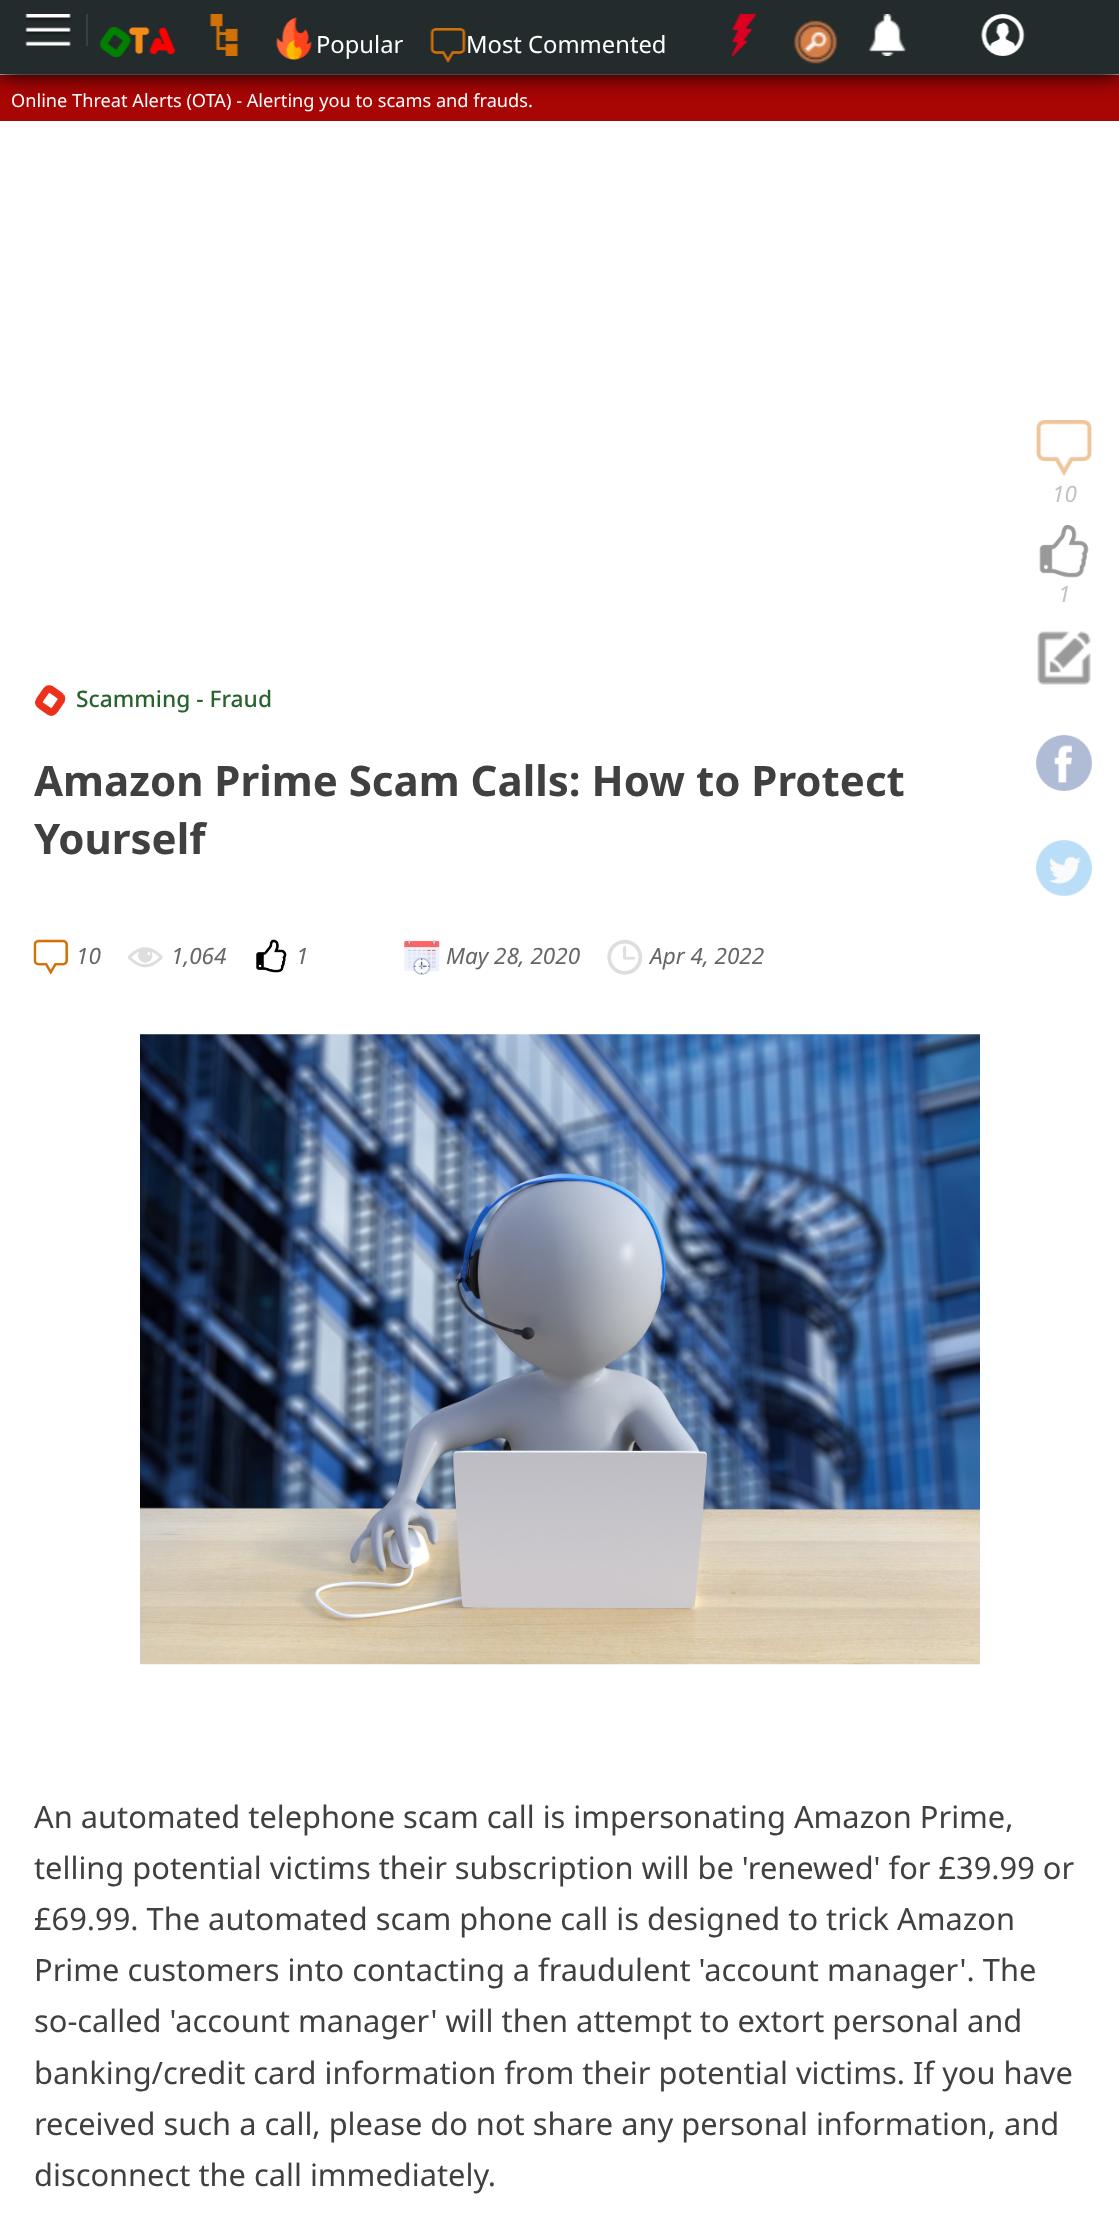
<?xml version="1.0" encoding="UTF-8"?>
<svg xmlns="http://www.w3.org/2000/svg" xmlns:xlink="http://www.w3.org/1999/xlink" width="1119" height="2213">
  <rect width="100%" height="100%" fill="#ffffff" />
  <rect y="77" width="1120" height="46" fill="#000000" filter="blur(10.5px)" />
  <rect y="75" width="1119" height="46" fill="#a80505" />
  <rect y="2" width="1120" height="73" fill="#000000" filter="blur(10.5px)" />
  <rect width="1119" height="74" fill="#232b2d" />
  <path d="M 12 46 h 76 v -32 h -2 v 32 z" fill="#394042" />
  <image x="25" y="14" width="46" height="32" xlink:href="image1.png" />
  <image x="99" y="27" width="77" height="31" xlink:href="image2.png" />
  <image x="209" y="14" width="30" height="42" xlink:href="image3.png" />
  <image x="276" y="17" width="36" height="43" xlink:href="image4.png" />
  <image x="430" y="28" width="36" height="35" xlink:href="image5.png" />
  <image x="731" y="14" width="26" height="42" xlink:href="image6.png" />
  <image x="793" y="20" width="45" height="44" xlink:href="image7.png" />
  <image x="868" y="14" width="38" height="42" xlink:href="image8.png" />
  <image x="981" y="14" width="44" height="42" xlink:href="image9.png" />
  <image x="1036" y="420" width="56" height="56" xlink:href="image10.png" />
  <image x="1039" y="525" width="50" height="53" xlink:href="image11.png" />
  <image x="1037" y="631" width="54" height="54" xlink:href="image12.png" />
  <rect y="121" width="1119" height="26" fill="#ffffff" />
  <image x="34" y="685" width="32" height="32" xlink:href="image13.png" />
  <image x="33" y="939" width="36" height="36" xlink:href="image14.png" />
  <image x="127" y="947" width="36" height="21" xlink:href="image15.png" />
  <image x="256" y="939" width="31" height="34" xlink:href="image16.png" />
  <image x="404" y="939" width="36" height="36" xlink:href="image17.png" />
  <image x="607" y="939" width="36" height="36" xlink:href="image18.png" />
  <image x="140" y="1034" width="840" height="631" xlink:href="image19.png" />
  <image x="1036" y="735" width="56" height="56" xlink:href="image20.png" />
  <image x="1036" y="840" width="56" height="56" xlink:href="image21.png" />
  <text x="316" y="53" style="font-family: Noto Sans; font-size: 23.75px; fill: #ffffff">Popular</text>
  <text x="466" y="53" style="font-family: Noto Sans; font-size: 23.75px; fill: #ffffff">Most Commented</text>
  <text x="11" y="107" style="font-family: Noto Sans; font-size: 18.2px; fill: #ffffff">Online Threat Alerts (OTA) - Alerting you to scams and frauds.</text>
  <text x="1052" y="502" style="font-family: Noto Sans; font-size: 22.5px; font-style: italic; fill: #c2c2c2">10</text>
  <text x="1058" y="602" style="font-family: Noto Sans; font-size: 22.5px; font-style: italic; fill: #c2c2c2">1</text>
  <text x="76" y="707" style="font-family: Noto Sans; font-size: 22.75px; font-weight: 500; fill: #28632d">Scamming - Fraud</text>
  <text x="34" y="796" style="font-family: Noto Sans; font-size: 42px; font-weight: bold; fill: #404040">Amazon Prime Scam Calls: How to Protect</text>
  <text x="34" y="854" style="font-family: Noto Sans; font-size: 42px; font-weight: bold; fill: #404040">Yourself</text>
  <text x="76" y="964" style="font-family: Noto Sans; font-size: 22.5px; font-style: italic; fill: #666666">10</text>
  <text x="171" y="964" style="font-family: Noto Sans; font-size: 22.5px; font-style: italic; fill: #666666">1,064</text>
  <text x="296" y="964" style="font-family: Noto Sans; font-size: 22.5px; font-style: italic; fill: #666666">1</text>
  <text x="446" y="964" style="font-family: Noto Sans; font-size: 22.5px; font-style: italic; fill: #666666">May 28, 2020</text>
  <text x="650" y="964" style="font-family: Noto Sans; font-size: 22.5px; font-style: italic; fill: #666666">Apr 4, 2022</text>
  <text x="34" y="1828" style="font-family: Noto Sans; font-size: 30.8px; fill: #404040">An automated telephone scam call is impersonating Amazon Prime,</text>
  <text x="34" y="1879" style="font-family: Noto Sans; font-size: 30.8px; fill: #404040">telling potential victims their subscription will be 'renewed' for £39.99 or</text>
  <text x="34" y="1930" style="font-family: Noto Sans; font-size: 30.8px; fill: #404040">£69.99. The automated scam phone call is designed to trick Amazon</text>
  <text x="34" y="1981" style="font-family: Noto Sans; font-size: 30.8px; fill: #404040">Prime customers into contacting a fraudulent 'account manager'. The</text>
  <text x="34" y="2032" style="font-family: Noto Sans; font-size: 30.8px; fill: #404040">so-called 'account manager' will then attempt to extort personal and</text>
  <text x="34" y="2084" style="font-family: Noto Sans; font-size: 30.8px; fill: #404040">banking/credit card information from their potential victims. If you have</text>
  <text x="34" y="2135" style="font-family: Noto Sans; font-size: 30.8px; fill: #404040">received such a call, please do not share any personal information, and</text>
  <text x="34" y="2186" style="font-family: Noto Sans; font-size: 30.8px; fill: #404040">disconnect the call immediately.</text>
</svg>
